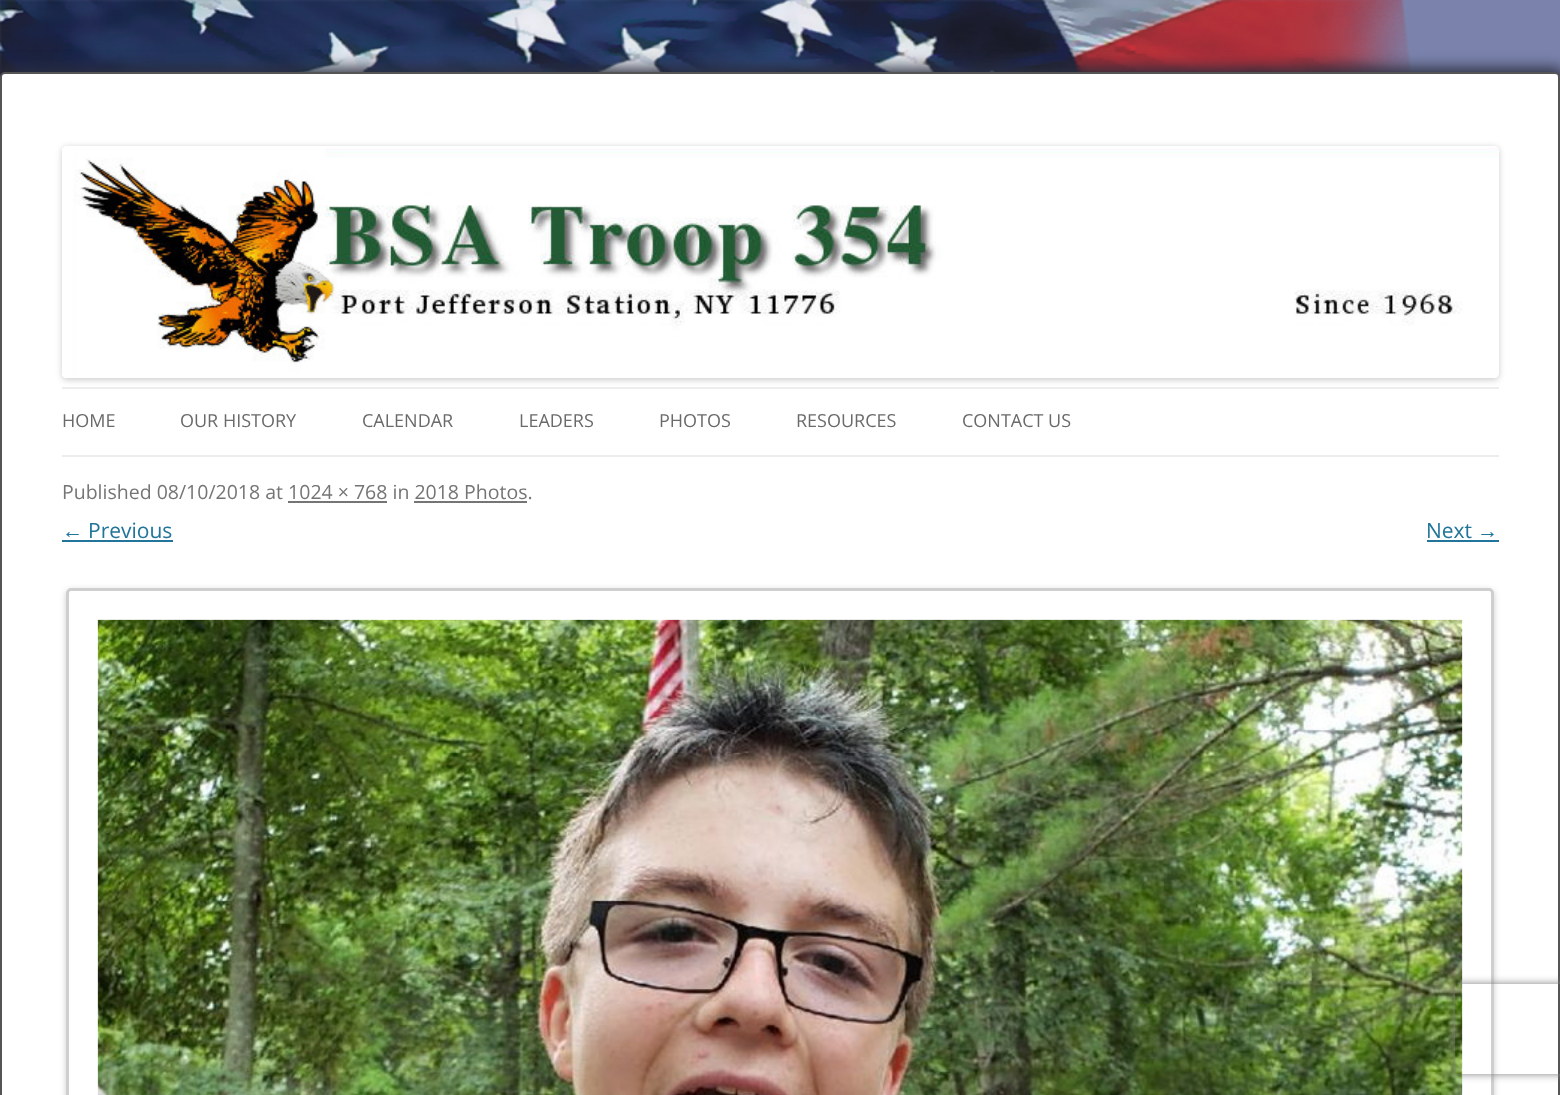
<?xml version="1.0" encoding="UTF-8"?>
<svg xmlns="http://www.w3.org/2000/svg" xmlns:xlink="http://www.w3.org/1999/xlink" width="1560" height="1095">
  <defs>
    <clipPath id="clip1"><path d="M 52 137 h 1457 v 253 h -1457 z m 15 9 h 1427 c 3 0 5 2 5 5 v 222 c 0 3 -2 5 -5 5 h -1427 c -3 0 -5 -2 -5 -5 v -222 c 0 -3 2 -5 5 -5 z" clip-rule="evenodd" /></clipPath>
    <clipPath id="clip2"><path d="M 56 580 h 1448 v 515 h -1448 z m 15 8 h 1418 c 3 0 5 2 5 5 v 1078 c 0 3 -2 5 -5 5 h -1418 c -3 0 -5 -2 -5 -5 v -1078 c 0 -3 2 -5 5 -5 z" clip-rule="evenodd" /></clipPath>
    <clipPath id="clip3"><path d="M 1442 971 h 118 v 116 h -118 z m 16 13 h 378 c 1.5 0 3 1.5 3 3 v 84 c 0 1.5 -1.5 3 -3 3 h -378 c -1.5 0 -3 -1.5 -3 -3 v -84 c 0 -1.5 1.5 -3 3 -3 z" clip-rule="evenodd" /></clipPath>
  </defs>
  <rect width="100%" height="100%" fill="#7b83ad" />
  <image x="0" y="0" width="1411" height="77" xlink:href="image1.png" />
  <rect x="-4" y="68" width="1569" height="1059" rx="9" fill="#2b2e3e" filter="blur(7.5px)" />
  <rect x="1" y="73" width="1558" height="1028" rx="4" fill="#ffffff" stroke="#555555" stroke-width="2" />
  <g clip-path="url(#clip1)">
    <rect x="62" y="147" width="1437" height="233" rx="5" fill="#000000" fill-opacity="0.2" filter="blur(3px)" />
  </g>
  <image x="62" y="148" width="1436" height="230" xlink:href="image2.png" />
  <rect x="62" y="387" width="1437" height="2" fill="#ededed" />
  <rect x="62" y="455" width="1437" height="2" fill="#ededed" />
  <rect x="288" y="501" width="99" height="2" fill="#757575" />
  <rect x="414" y="501" width="113" height="2" fill="#757575" />
  <rect x="62" y="540" width="111" height="2" fill="#21759b" />
  <rect x="1427" y="540" width="72" height="2" fill="#21759b" />
  <g clip-path="url(#clip2)">
    <rect x="66" y="590" width="1428" height="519" rx="5" fill="#000000" fill-opacity="0.2" filter="blur(3px)" />
  </g>
  <rect x="67.5" y="589.5" width="1425" height="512" rx="3.5" fill="none" stroke="#cfcfcf" stroke-width="3" />
  <image x="97" y="619" width="1366" height="476" xlink:href="image3.png" />
  <g clip-path="url(#clip3)">
    <rect x="1455" y="984" width="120" height="90" rx="3" fill="#808080" filter="blur(4px)" />
  </g>
  <text x="62" y="427" style="font-family: Open Sans; font-size: 18px; fill: #6a6a6a">HOME</text>
  <text x="180" y="427" style="font-family: Open Sans; font-size: 18px; fill: #6a6a6a">OUR HISTORY</text>
  <text x="362" y="427" style="font-family: Open Sans; font-size: 18px; fill: #6a6a6a">CALENDAR</text>
  <text x="519" y="427" style="font-family: Open Sans; font-size: 18px; fill: #6a6a6a">LEADERS</text>
  <text x="659" y="427" style="font-family: Open Sans; font-size: 18px; fill: #6a6a6a">PHOTOS</text>
  <text x="796" y="427" style="font-family: Open Sans; font-size: 18px; fill: #6a6a6a">RESOURCES</text>
  <text x="962" y="427" style="font-family: Open Sans; font-size: 18px; fill: #6a6a6a">CONTACT US</text>
  <text x="62" y="499" style="font-family: Open Sans; font-size: 19.5px; fill: #757575">Published 08/10/2018 at 1024 × 768 in 2018 Photos.</text>
  <text x="62" y="538" style="font-family: Liberation Sans; font-size: 21px; fill: #21759b">←</text>
  <text x="88" y="538" style="font-family: Open Sans; font-size: 21px; fill: #21759b">Previous</text>
  <text x="1426" y="538" style="font-family: Open Sans; font-size: 21px; fill: #21759b">Next</text>
  <text x="1477" y="538" style="font-family: Liberation Sans; font-size: 21px; fill: #21759b">→</text>
</svg>
